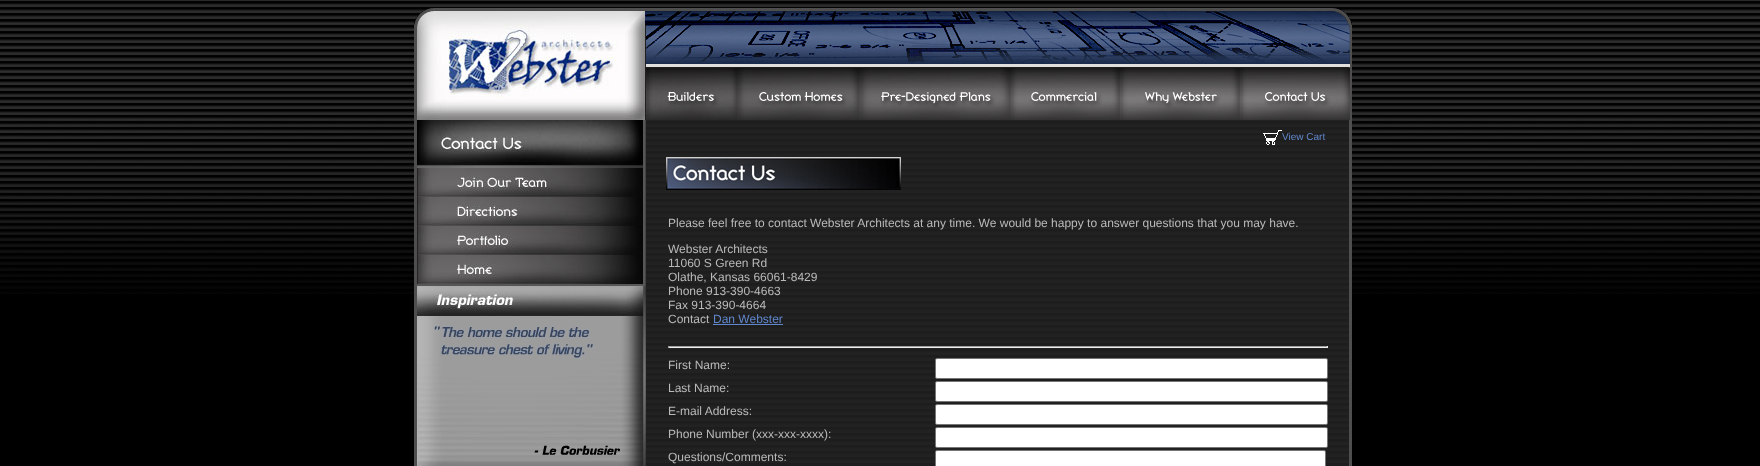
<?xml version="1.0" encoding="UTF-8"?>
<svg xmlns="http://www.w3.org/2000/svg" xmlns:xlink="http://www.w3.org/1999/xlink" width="1760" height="466">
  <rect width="100%" height="100%" fill="#000000" />
  <image x="0" y="0" width="1760" height="294" xlink:href="image1.png" />
  <image x="414" y="8" width="938" height="17" xlink:href="image2.png" />
  <image x="414" y="25" width="938" height="441" xlink:href="image3.png" />
  <image x="417" y="25" width="228" height="95" xlink:href="image4.png" />
  <image x="646" y="25" width="704" height="42" xlink:href="image5.png" />
  <image x="646" y="68" width="92" height="52" xlink:href="image6.png" />
  <image x="738" y="68" width="122" height="52" xlink:href="image7.png" />
  <image x="860" y="68" width="151" height="52" xlink:href="image8.png" />
  <image x="1011" y="68" width="109" height="52" xlink:href="image9.png" />
  <image x="1120" y="68" width="120" height="52" xlink:href="image10.png" />
  <image x="1240" y="68" width="110" height="52" xlink:href="image11.png" />
  <image x="417" y="120" width="229" height="48" xlink:href="image12.png" />
  <image x="417" y="168" width="229" height="29" xlink:href="image13.png" />
  <image x="417" y="197" width="229" height="29" xlink:href="image14.png" />
  <image x="417" y="226" width="229" height="29" xlink:href="image15.png" />
  <image x="417" y="255" width="229" height="29" xlink:href="image16.png" />
  <image x="417" y="284" width="229" height="2" xlink:href="image17.png" />
  <image x="417" y="286" width="229" height="180" xlink:href="image18.png" />
  <image x="1263" y="130" width="19" height="15" xlink:href="image19.png" />
  <image x="666" y="157" width="235" height="33" xlink:href="image20.png" />
  <rect x="713" y="324" width="70" height="1" fill="#6087cd" />
  <rect x="668" y="346" width="660" height="1" fill="#9f9f9f" />
  <rect x="1327" y="346" width="1" height="2" fill="#eeeeee" />
  <rect x="668" y="347" width="660" height="1" fill="#eeeeee" />
  <rect x="668" y="346" width="1" height="2" fill="#9f9f9f" />
  <rect x="935.5" y="358.5" width="392" height="20" rx="1.5" fill="#ffffff" stroke="#767676" />
  <rect x="935.5" y="381.5" width="392" height="20" rx="1.5" fill="#ffffff" stroke="#767676" />
  <rect x="935.5" y="404.5" width="392" height="20" rx="1.5" fill="#ffffff" stroke="#767676" />
  <rect x="935.5" y="427.5" width="392" height="20" rx="1.5" fill="#ffffff" stroke="#767676" />
  <rect x="935.5" y="450.5" width="390" height="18" rx="1.5" fill="#ffffff" stroke="#767676" />
  <text x="1282" y="140" style="font-family: Liberation Sans; font-size: 10px; fill: #6087cd">View Cart</text>
  <text x="668" y="227" style="font-family: Liberation Sans; font-size: 12px; fill: #bababa">Please feel free to contact Webster Architects at any time. We would be happy to answer questions that you may have.</text>
  <text x="668" y="253" style="font-family: Liberation Sans; font-size: 12px; fill: #bababa">Webster Architects</text>
  <text x="668" y="267" style="font-family: Liberation Sans; font-size: 12px; fill: #bababa">11060 S Green Rd</text>
  <text x="668" y="281" style="font-family: Liberation Sans; font-size: 12px; fill: #bababa">Olathe, Kansas 66061-8429</text>
  <text x="668" y="295" style="font-family: Liberation Sans; font-size: 12px; fill: #bababa">Phone 913-390-4663</text>
  <text x="668" y="309" style="font-family: Liberation Sans; font-size: 12px; fill: #bababa">Fax 913-390-4664</text>
  <text x="668" y="323" style="font-family: Liberation Sans; font-size: 12px; fill: #bababa">Contact</text>
  <text x="713" y="323" style="font-family: Liberation Sans; font-size: 12px; fill: #6087cd">Dan Webster</text>
  <text x="668" y="369" style="font-family: Liberation Sans; font-size: 12px; fill: #bababa">First Name:</text>
  <text x="668" y="392" style="font-family: Liberation Sans; font-size: 12px; fill: #bababa">Last Name:</text>
  <text x="668" y="415" style="font-family: Liberation Sans; font-size: 12px; fill: #bababa">E-mail Address:</text>
  <text x="668" y="438" style="font-family: Liberation Sans; font-size: 12px; fill: #bababa">Phone Number (xxx-xxx-xxxx):</text>
  <text x="668" y="461" style="font-family: Liberation Sans; font-size: 12px; fill: #bababa">Questions/Comments:</text>
</svg>
